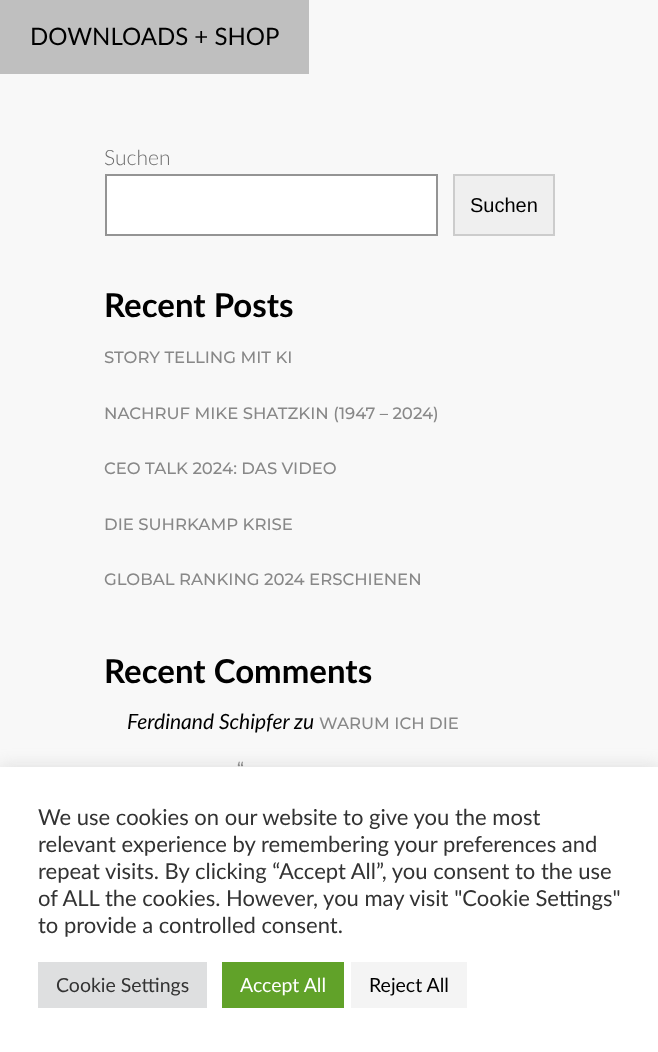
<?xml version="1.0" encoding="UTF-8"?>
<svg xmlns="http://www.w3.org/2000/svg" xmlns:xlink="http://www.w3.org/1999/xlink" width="658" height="1052">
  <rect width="100%" height="100%" fill="#f8f8f8" />
  <rect width="309" height="74" fill="#bfbfbf" />
  <rect x="106" y="175" width="331" height="60" fill="#ffffff" stroke="#949494" stroke-width="2" />
  <rect x="454" y="175" width="100" height="60" fill="#efefef" stroke="#cccccc" stroke-width="2" />
  <rect y="765" width="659" height="287" fill="#acabab" fill-opacity="0.3" filter="blur(7.5px)" />
  <rect y="767" width="658" height="285" fill="#ffffff" />
  <rect x="38" y="962" width="169" height="46" fill="#dedfe0" />
  <rect x="222" y="962" width="122" height="46" fill="#61a229" />
  <rect x="351" y="962" width="116" height="46" fill="#f4f4f4" />
  <text x="30" y="45" style="font-family: Lato; font-size: 24px; fill: #000000">DOWNLOADS + SHOP</text>
  <text x="104" y="165" style="font-family: Lato; font-size: 21px; font-weight: 300; fill: #6d6d6d">Suchen</text>
  <text x="470" y="212" style="font-family: Liberation Sans; font-size: 20px; fill: #000000">Suchen</text>
  <text x="104" y="317" style="font-family: Lato; font-size: 33px; font-weight: bold; fill: #000000">Recent Posts</text>
  <text x="104" y="363" style="font-family: Montserrat; font-size: 16.5px; font-weight: 500; fill: #888888">STORY TELLING MIT KI</text>
  <text x="104" y="419" style="font-family: Montserrat; font-size: 16.5px; font-weight: 500; fill: #888888">NACHRUF MIKE SHATZKIN (1947 – 2024)</text>
  <text x="104" y="474" style="font-family: Montserrat; font-size: 16.5px; font-weight: 500; fill: #888888">CEO TALK 2024: DAS VIDEO</text>
  <text x="104" y="530" style="font-family: Montserrat; font-size: 16.5px; font-weight: 500; fill: #888888">DIE SUHRKAMP KRISE</text>
  <text x="104" y="585" style="font-family: Montserrat; font-size: 16.5px; font-weight: 500; fill: #888888">GLOBAL RANKING 2024 ERSCHIENEN</text>
  <text x="104" y="683" style="font-family: Lato; font-size: 33px; font-weight: bold; fill: #000000">Recent Comments</text>
  <text x="127" y="729" style="font-family: Lato; font-size: 21px; font-style: italic; fill: #000000">Ferdinand Schipfer</text>
  <text x="294" y="729" style="font-family: Lato; font-size: 21px; font-style: italic; fill: #000000">zu</text>
  <text x="319" y="729" style="font-family: Montserrat; font-size: 16.5px; font-weight: 500; fill: #888888">WARUM ICH DIE</text>
  <text x="237" y="774" style="font-family: Montserrat; font-size: 16.5px; font-weight: 500; fill: #888888">“</text>
  <text x="38" y="825" style="font-family: Lato; font-size: 22px; fill: #333333">We use cookies on our website to give you the most</text>
  <text x="38" y="852" style="font-family: Lato; font-size: 22px; fill: #333333">relevant experience by remembering your preferences and</text>
  <text x="38" y="879" style="font-family: Lato; font-size: 22px; fill: #333333">repeat visits. By clicking “Accept All”, you consent to the use</text>
  <text x="38" y="906" style="font-family: Lato; font-size: 22px; fill: #333333">of ALL the cookies. However, you may visit "Cookie Settings"</text>
  <text x="38" y="933" style="font-family: Lato; font-size: 22px; fill: #333333">to provide a controlled consent.</text>
  <text x="56" y="992" style="font-family: Lato; font-size: 19.5px; fill: #333333">Cookie Settings</text>
  <text x="240" y="992" style="font-family: Lato; font-size: 19.5px; fill: #ffffff">Accept All</text>
  <text x="369" y="992" style="font-family: Lato; font-size: 19.5px; fill: #000000">Reject All</text>
</svg>
